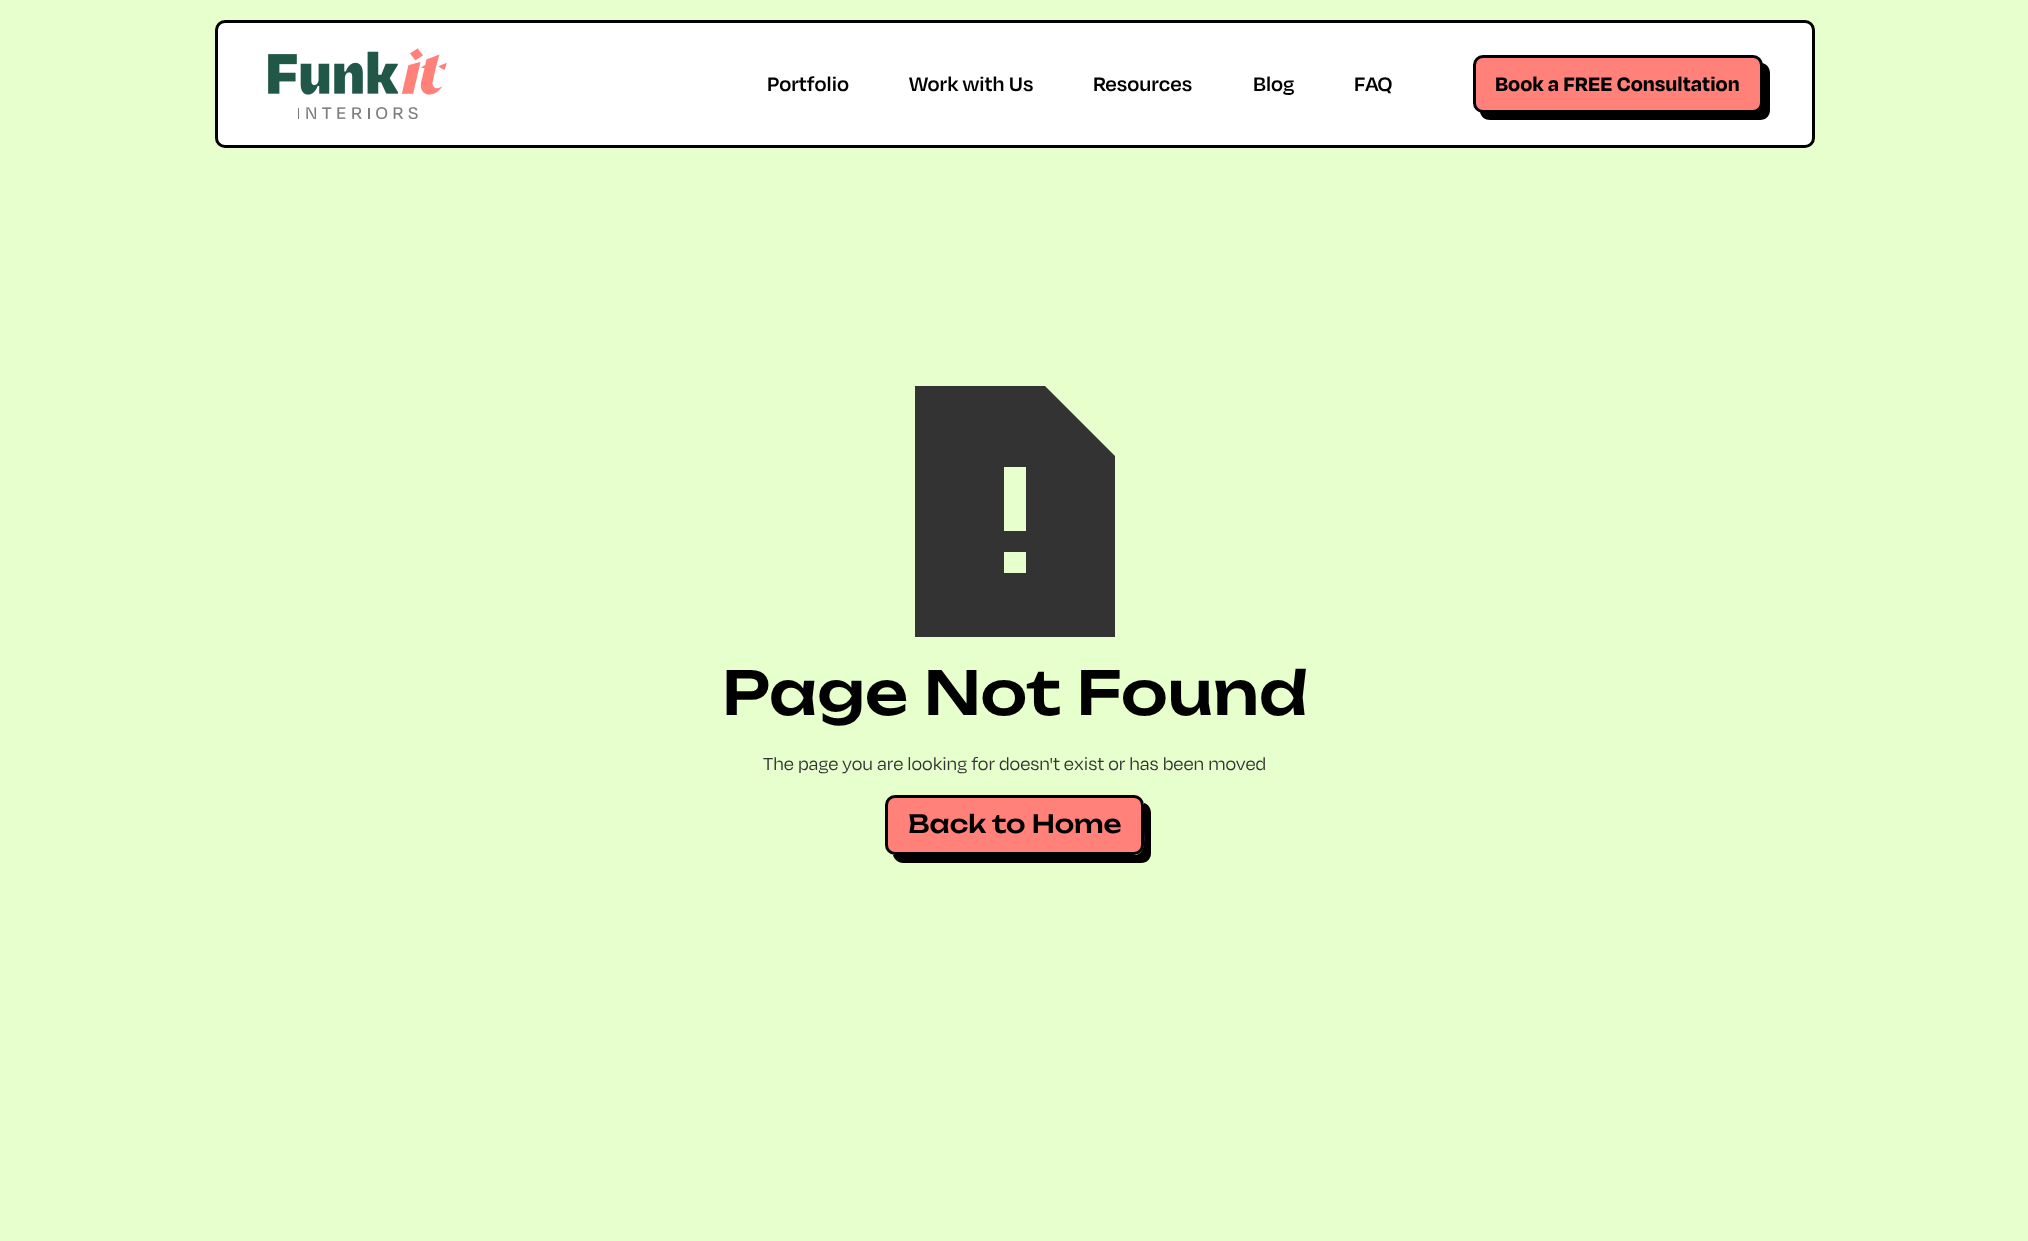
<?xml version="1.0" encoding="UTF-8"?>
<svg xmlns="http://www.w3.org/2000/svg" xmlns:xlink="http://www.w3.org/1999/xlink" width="2028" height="1241">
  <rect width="100%" height="100%" fill="#e7ffcc" />
  <rect x="216.5" y="21.5" width="1597" height="125" rx="8.5" fill="#ffffff" stroke="#000000" stroke-width="3" />
  <image x="268" y="48" width="179" height="72" xlink:href="image1.png" />
  <path d="M 1480 112 c 1 5 5 8 10 8 h 270 c 6 0 10 -4 10 -10 v -37 c 0 -5 -3 -9 -8 -10 v 27 c 0 8 3 22 -10 22 z" fill="#000000" />
  <rect x="1474.5" y="56.5" width="287" height="55" rx="8.5" fill="#ff8179" stroke="#000000" stroke-width="3" />
  <path d="M 915 386 h 130 l 70 70 v 181 h -200 z m 89 81 h 22 v 64 h -22 z m 0 85 h 22 v 21 h -22 z" fill="#333333" fill-rule="evenodd" />
  <path d="M 893 855 c 1 4 5 8 10 8 h 238 c 6 0 10 -4 10 -10 v -40 c 0 -5 -3 -9 -7 -10 v 29 c 0 8 2 23 -10 23 z" fill="#000000" />
  <rect x="886.5" y="796.5" width="256" height="57" rx="8.5" fill="#ff8179" stroke="#000000" stroke-width="3" />
  <text x="767" y="91" style="font-family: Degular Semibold; font-size: 22.5px; font-weight: 600; fill: #000000">Portfolio</text>
  <text x="909" y="91" style="font-family: Degular Semibold; font-size: 22.5px; font-weight: 600; fill: #000000">Work with Us</text>
  <text x="1093" y="91" style="font-family: Degular Semibold; font-size: 22.5px; font-weight: 600; fill: #000000">Resources</text>
  <text x="1253" y="91" style="font-family: Degular Semibold; font-size: 22.5px; font-weight: 600; fill: #000000">Blog</text>
  <text x="1354" y="91" style="font-family: Degular Semibold; font-size: 22.5px; font-weight: 600; fill: #000000">FAQ</text>
  <text x="1495" y="91" style="font-family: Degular; font-size: 22.5px; font-weight: bold; fill: #000000">Book a FREE Consultation</text>
  <text x="722" y="715" style="font-family: Unbounded; font-size: 60px; font-weight: 500; fill: #000000">Page Not Found</text>
  <text x="763" y="770" style="font-family: Degular; font-size: 20px; fill: #333333">The page you are looking for doesn't exist or has been moved</text>
  <text x="908" y="833" style="font-family: Unbounded; font-size: 25px; font-weight: 500; fill: #000000">Back to Home</text>
</svg>
